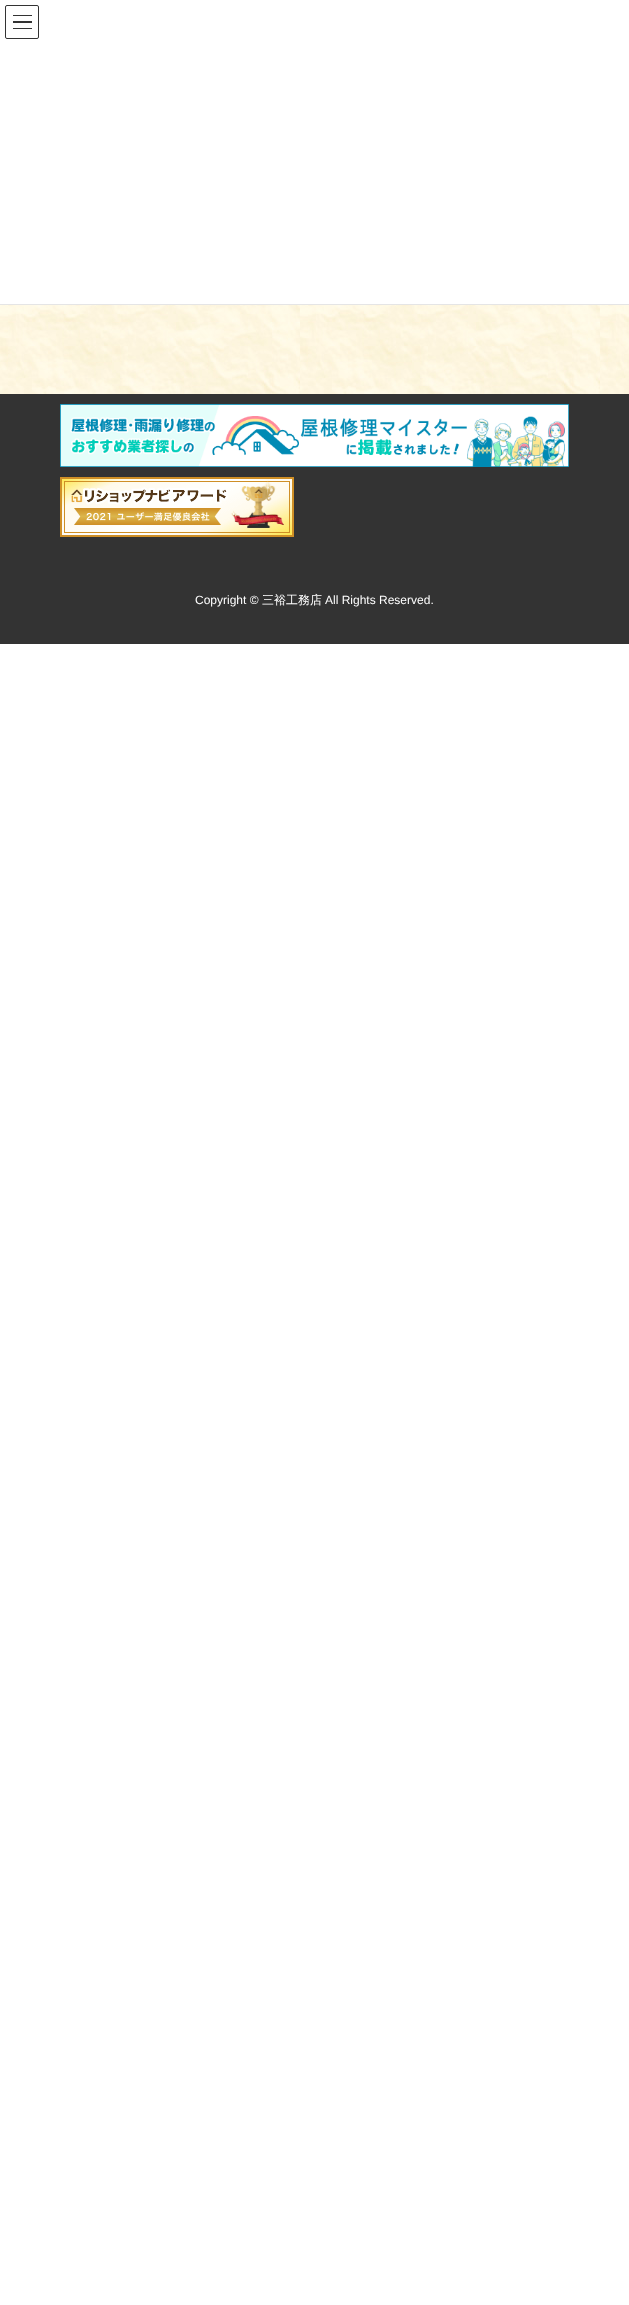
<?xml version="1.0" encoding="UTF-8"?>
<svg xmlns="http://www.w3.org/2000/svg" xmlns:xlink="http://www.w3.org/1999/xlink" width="629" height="2305">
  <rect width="100%" height="100%" fill="#ffffff" />
  <rect x="13" y="15" width="19" height="1" fill="#333333" />
  <rect x="13" y="21" width="19" height="2" fill="#333333" />
  <rect x="13" y="28" width="19" height="1" fill="#333333" />
  <rect x="5.5" y="5.5" width="33" height="33" rx="1.5" fill="none" stroke="#333333" />
  <rect y="304" width="629" height="1" fill="#e5e5e5" />
  <image x="0" y="305" width="629" height="89" xlink:href="image1.png" />
  <rect y="394" width="629" height="250" fill="#333333" />
  <image x="60" y="404" width="509" height="63" xlink:href="image2.png" />
  <image x="60" y="477" width="234" height="60" xlink:href="image3.png" />
  <text x="195" y="604" style="font-family: Liberation Sans; font-size: 12px; fill: #ffffff">Copyright ©</text>
  <text x="262" y="604" style="font-family: WenQuanYi Zen Hei; font-size: 12px; font-weight: 500; fill: #ffffff">三裕工務店</text>
  <text x="325" y="604" style="font-family: Liberation Sans; font-size: 12px; fill: #ffffff">All Rights Reserved.</text>
</svg>
